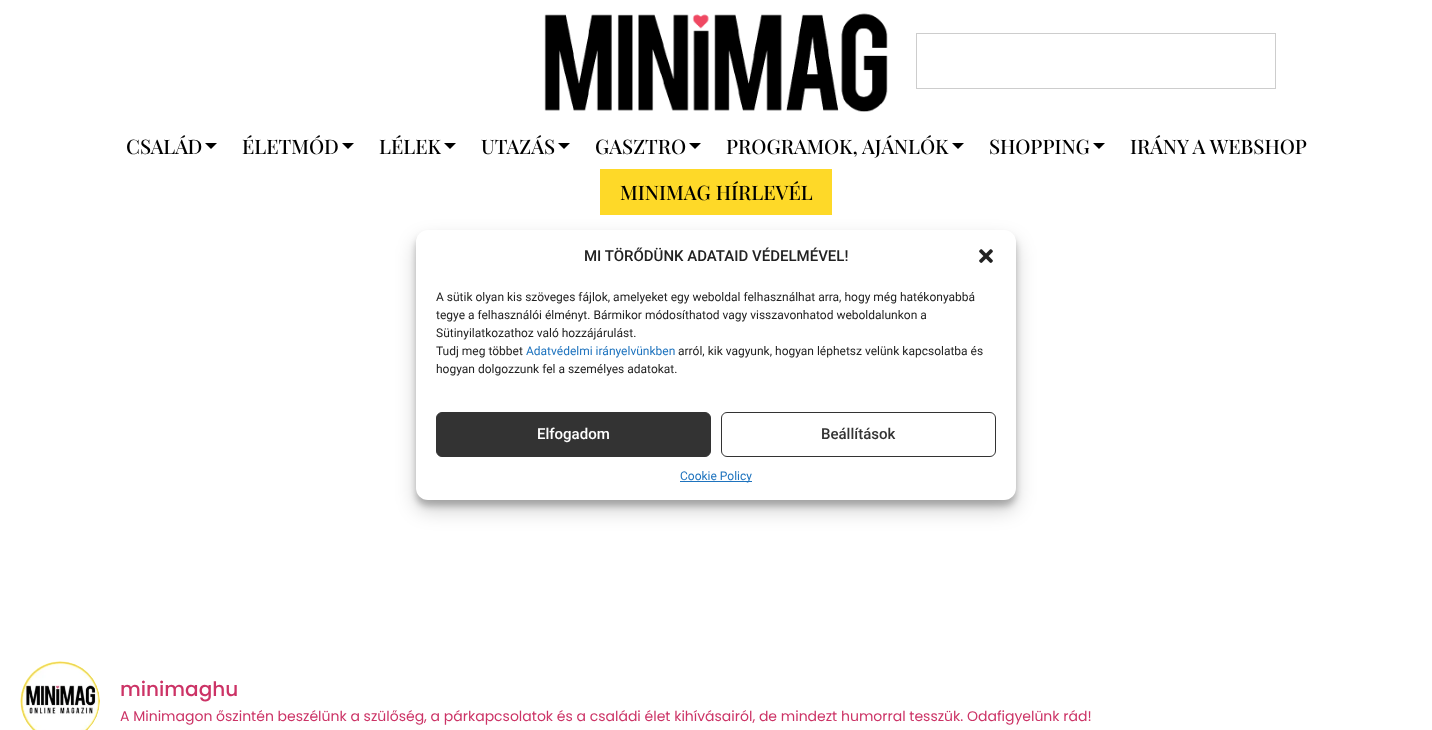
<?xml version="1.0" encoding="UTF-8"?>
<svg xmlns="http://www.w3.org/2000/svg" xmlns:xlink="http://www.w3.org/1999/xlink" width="1432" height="730">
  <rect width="100%" height="100%" fill="#ffffff" />
  <image x="544" y="13" width="344" height="99" xlink:href="image1.png" />
  <rect x="916.5" y="33.5" width="359" height="55" fill="none" stroke="#cdcdcd" />
  <path d="M 205 143 h 12 l -6 6 z" fill="#000000" />
  <path d="M 342 143 h 12 l -6 6 z" fill="#000000" />
  <path d="M 444 143 h 12 l -6 6 z" fill="#000000" />
  <path d="M 558 143 h 12 l -6 6 z" fill="#000000" />
  <path d="M 689 143 h 12 l -6 6 z" fill="#000000" />
  <path d="M 952 143 h 12 l -6 6 z" fill="#000000" />
  <path d="M 1093 143 h 12 l -6 6 z" fill="#000000" />
  <rect x="600" y="169" width="232" height="46" fill="#fed928" />
  <rect x="416" y="236" width="600" height="270" rx="12" fill="#000000" fill-opacity="0.23" filter="blur(3px)" />
  <rect x="416" y="240" width="600" height="270" rx="12" fill="#000000" fill-opacity="0.19" filter="blur(10px)" />
  <rect x="416" y="230" width="600" height="270" rx="12" fill="#ffffff" />
  <image x="979" y="249" width="14" height="14" xlink:href="image2.png" />
  <rect x="436.5" y="412.5" width="274" height="44" rx="5.5" fill="#333333" stroke="#333333" />
  <rect x="721.5" y="412.5" width="274" height="44" rx="5.5" fill="none" stroke="#333333" />
  <rect x="680" y="481" width="72" height="1" fill="#1e73be" />
  <image x="20" y="661" width="80" height="69" xlink:href="image3.png" />
  <text x="126" y="154" style="font-family: Playfair Display; font-size: 20px; font-weight: 500; fill: #000000">CSALÁD</text>
  <text x="242" y="154" style="font-family: Playfair Display; font-size: 20px; font-weight: 500; fill: #000000">ÉLETMÓD</text>
  <text x="379" y="154" style="font-family: Playfair Display; font-size: 20px; font-weight: 500; fill: #000000">LÉLEK</text>
  <text x="481" y="154" style="font-family: Playfair Display; font-size: 20px; font-weight: 500; fill: #000000">UTAZÁS</text>
  <text x="595" y="154" style="font-family: Playfair Display; font-size: 20px; font-weight: 500; fill: #000000">GASZTRO</text>
  <text x="726" y="154" style="font-family: Playfair Display; font-size: 20px; font-weight: 500; fill: #000000">PROGRAMOK, AJÁNLÓK</text>
  <text x="989" y="154" style="font-family: Playfair Display; font-size: 20px; font-weight: 500; fill: #000000">SHOPPING</text>
  <text x="1130" y="154" style="font-family: Playfair Display; font-size: 20px; font-weight: 500; fill: #000000">IRÁNY A WEBSHOP</text>
  <text x="620" y="200" style="font-family: Playfair Display; font-size: 20px; font-weight: 500; fill: #000000">MINIMAG HÍRLEVÉL</text>
  <text x="584" y="261" style="font-family: Roboto; font-size: 15px; font-weight: 500; fill: #222222">MI TÖRŐDÜNK ADATAID VÉDELMÉVEL!</text>
  <text x="436" y="301" style="font-family: Roboto; font-size: 12px; fill: #222222">A sütik olyan kis szöveges fájlok, amelyeket egy weboldal felhasználhat arra, hogy még hatékonyabbá</text>
  <text x="436" y="319" style="font-family: Roboto; font-size: 12px; fill: #222222">tegye a felhasználói élményt. Bármikor módosíthatod vagy visszavonhatod weboldalunkon a</text>
  <text x="436" y="337" style="font-family: Roboto; font-size: 12px; fill: #222222">Sütinyilatkozathoz való hozzájárulást.</text>
  <text x="436" y="355" style="font-family: Roboto; font-size: 12px; fill: #222222">Tudj meg többet</text>
  <text x="526" y="355" style="font-family: Roboto; font-size: 12px; fill: #1e73be">Adatvédelmi irányelvünkben</text>
  <text x="678" y="355" style="font-family: Roboto; font-size: 12px; fill: #222222">arról, kik vagyunk, hogyan léphetsz velünk kapcsolatba és</text>
  <text x="436" y="373" style="font-family: Roboto; font-size: 12px; fill: #222222">hogyan dolgozzunk fel a személyes adatokat.</text>
  <text x="537" y="439" style="font-family: Roboto; font-size: 15px; font-weight: 500; fill: #ffffff">Elfogadom</text>
  <text x="821" y="439" style="font-family: Roboto; font-size: 15px; font-weight: 500; fill: #333333">Beállítások</text>
  <text x="680" y="480" style="font-family: Roboto; font-size: 12px; fill: #1e73be">Cookie Policy</text>
  <text x="120" y="696" style="font-family: Poppins; font-size: 20px; font-weight: 500; fill: #cc3366">minimaghu</text>
  <text x="120" y="721" style="font-family: Poppins; font-size: 14px; fill: #cc3366">A Minimagon őszintén beszélünk a szülőség, a párkapcsolatok és a családi élet kihívásairól, de mindezt humorral tesszük. Odafigyelünk rád!</text>
</svg>
